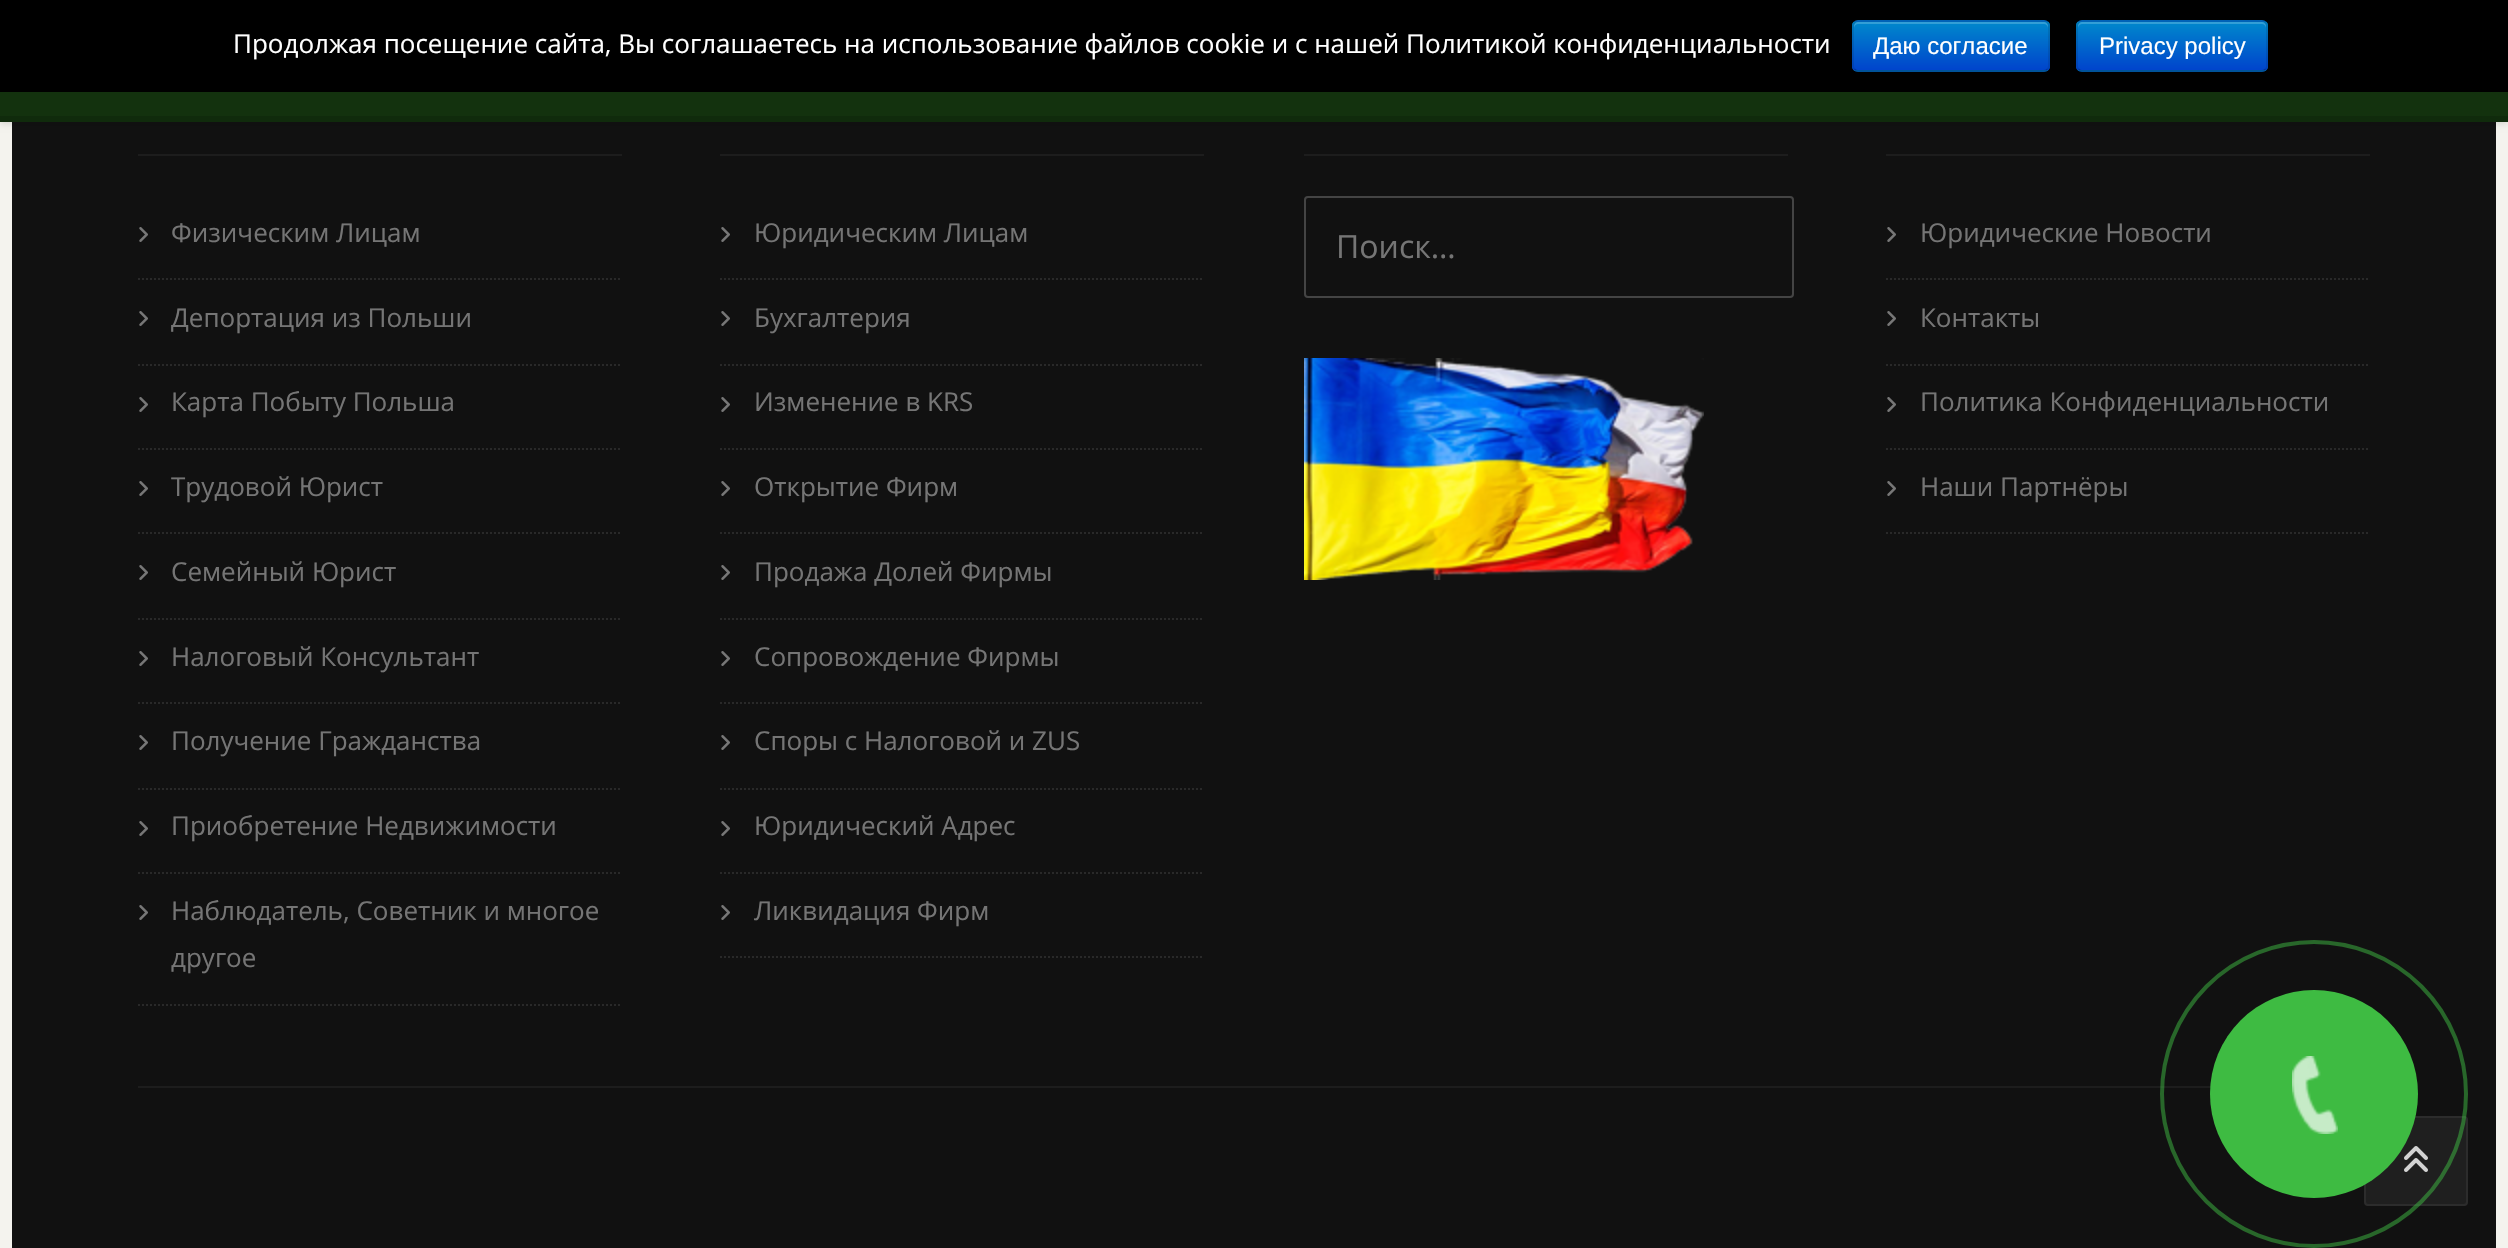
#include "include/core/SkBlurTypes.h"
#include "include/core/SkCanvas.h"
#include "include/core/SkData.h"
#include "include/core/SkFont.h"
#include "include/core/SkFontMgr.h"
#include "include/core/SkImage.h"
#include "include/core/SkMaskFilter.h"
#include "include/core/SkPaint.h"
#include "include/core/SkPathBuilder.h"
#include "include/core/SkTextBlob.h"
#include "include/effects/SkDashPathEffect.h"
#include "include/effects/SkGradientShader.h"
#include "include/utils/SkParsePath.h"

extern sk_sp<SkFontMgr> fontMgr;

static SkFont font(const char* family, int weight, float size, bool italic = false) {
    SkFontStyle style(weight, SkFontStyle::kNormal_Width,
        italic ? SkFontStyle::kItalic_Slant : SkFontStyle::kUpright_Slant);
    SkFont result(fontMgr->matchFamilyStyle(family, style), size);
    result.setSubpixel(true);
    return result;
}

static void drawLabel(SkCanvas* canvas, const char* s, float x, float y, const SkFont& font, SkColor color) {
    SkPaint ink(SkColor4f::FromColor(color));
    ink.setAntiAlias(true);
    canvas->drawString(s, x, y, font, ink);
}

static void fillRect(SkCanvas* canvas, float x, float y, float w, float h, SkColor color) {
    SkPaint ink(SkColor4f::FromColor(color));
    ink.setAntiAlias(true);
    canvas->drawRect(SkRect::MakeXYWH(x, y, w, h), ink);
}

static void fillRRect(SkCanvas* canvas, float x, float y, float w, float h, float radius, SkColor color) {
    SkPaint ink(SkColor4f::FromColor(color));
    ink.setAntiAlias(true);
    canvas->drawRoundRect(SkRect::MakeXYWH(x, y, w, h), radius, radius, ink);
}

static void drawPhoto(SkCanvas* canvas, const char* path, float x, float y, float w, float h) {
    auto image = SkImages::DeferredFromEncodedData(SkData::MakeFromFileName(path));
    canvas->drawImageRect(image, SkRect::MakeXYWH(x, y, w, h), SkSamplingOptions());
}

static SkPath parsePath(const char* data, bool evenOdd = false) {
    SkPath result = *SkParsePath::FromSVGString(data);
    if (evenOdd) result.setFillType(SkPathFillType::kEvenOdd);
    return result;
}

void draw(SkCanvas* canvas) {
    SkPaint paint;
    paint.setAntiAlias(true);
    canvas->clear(0xFFF4F3EE);
    fillRect(canvas, 12, 122, 2484, 1126, 0xFF111111);
    paint.setColor(0x1F000000);
    paint.setMaskFilter(SkMaskFilter::MakeBlur(kNormal_SkBlurStyle, 3));
    canvas->drawRect(SkRect::MakeXYWH(0, -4, 2508, 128), paint);
    paint.setMaskFilter(nullptr);
    fillRect(canvas, 0, 0, 2508, 92, 0xFF000000);
    SkFont font1 = font("Open Sans", 400, 26);
    drawLabel(canvas, "Продолжая посещение сайта, Вы соглашаетесь на использование файлов cookie и с нашей Политикой конфиденциальности", 233, 53, font1, 0xFFFFFFFF);
    fillRRect(canvas, 1852, 20, 198, 52, 6, 0xFF006DCC);
    canvas->save();
    canvas->clipPath(parsePath("M1858 20H2044C2047.5 20 2050 22.5 2050 26V66C2050 69.5 2047.5 72 2044 72H1858C1854.5 72 1852 69.5 1852 66V26C1852 22.5 1854.5 20 1858 20Z"), true);
    {
        const SkColor colors[] = {0xFF0088CC, 0xFF0044CC};
        const float stops[] = {0, 1};
        const SkPoint ends[] = {{1951, 22}, {1951, 70}};
        paint.setShader(SkGradientShader::MakeLinear(ends, colors, stops, 2, SkTileMode::kClamp));
        paint.setAlpha(255);
    }
    canvas->drawRect(SkRect::MakeXYWH(1852, 22, 198, 48), paint);
    canvas->restore();
    paint.setShader(nullptr);
    paint.setColor(0x33FFFFFF);
    canvas->drawPath(parsePath("M1858 24H2044C2046 24 2048 26 2048 28V26C2048 24 2046 22 2044 22H1858C1856 22 1854 24 1854 26V28C1854 26 1856 24 1858 24Z"), paint);
    paint.setStroke(true);
    paint.setStrokeWidth(2);
    paint.setColor(0x40000000);
    canvas->drawPath(parsePath("M2047.5 69.5C2046.5 70.5 2045.5 71 2044 71H1858C1856.5 71 1855.5 70.5 1854.5 69.5"), paint);
    paint.setColor(0x1A000000);
    canvas->drawPath(parsePath("M1854.5 69.5C1853.5 68.5 1853 67.5 1853 66V26C1853 24.5 1853.5 23.5 1854.5 22.5C1855.5 21.5 1856.5 21 1858 21H2044C2045.5 21 2046.5 21.5 2047.5 22.5C2048.5 23.5 2049 24.5 2049 26V66C2049 67.5 2048.5 68.5 2047.5 69.5"), paint);
    SkFont font2 = font("Liberation Sans", 400, 24);
    drawLabel(canvas, "Даю согласие", 1873, 54, font2, 0xFFFFFFFF);
    fillRRect(canvas, 2076, 20, 192, 52, 6, 0xFF006DCC);
    canvas->save();
    canvas->clipPath(parsePath("M2082 20H2262C2265.5 20 2268 22.5 2268 26V66C2268 69.5 2265.5 72 2262 72H2082C2078.5 72 2076 69.5 2076 66V26C2076 22.5 2078.5 20 2082 20Z"), true);
    paint.setStroke(false);
    {
        const SkColor colors[] = {0xFF0088CC, 0xFF0044CC};
        const float stops[] = {0, 1};
        const SkPoint ends[] = {{2172, 22}, {2172, 70}};
        paint.setShader(SkGradientShader::MakeLinear(ends, colors, stops, 2, SkTileMode::kClamp));
        paint.setAlpha(255);
    }
    canvas->drawRect(SkRect::MakeXYWH(2076, 22, 192, 48), paint);
    canvas->restore();
    paint.setShader(nullptr);
    paint.setColor(0x33FFFFFF);
    canvas->drawPath(parsePath("M2082 24H2262C2264 24 2266 26 2266 28V26C2266 24 2264 22 2262 22H2082C2080 22 2078 24 2078 26V28C2078 26 2080 24 2082 24Z"), paint);
    paint.setStroke(true);
    paint.setColor(0x40000000);
    canvas->drawPath(parsePath("M2265.5 69.5C2264.5 70.5 2263.5 71 2262 71H2082C2080.5 71 2079.5 70.5 2078.5 69.5"), paint);
    paint.setColor(0x1A000000);
    canvas->drawPath(parsePath("M2078.5 69.5C2077.5 68.5 2077 67.5 2077 66V26C2077 24.5 2077.5 23.5 2078.5 22.5C2079.5 21.5 2080.5 21 2082 21H2262C2263.5 21 2264.5 21.5 2265.5 22.5C2266.5 23.5 2267 24.5 2267 26V66C2267 67.5 2266.5 68.5 2265.5 69.5"), paint);
    drawLabel(canvas, "Privacy policy", 2099, 54, font2, 0xFFFFFFFF);
    fillRect(canvas, 0, 92, 2508, 24, 0xFF13320E);
    fillRect(canvas, 0, 116, 2508, 6, 0xFF102B0C);
    fillRect(canvas, 138, 1086, 2073, 2, 0xFF1D1D1D);
    fillRect(canvas, 138, 154, 484, 2, 0xFF1D1D1D);
    paint.setColor(0xFF292929);
    paint.setPathEffect(SkDashPathEffect::Make({{2, 2}}, 0));
    canvas->drawPath(parsePath("M138 279H622"), paint);
    paint.setPathEffect(nullptr);
    drawPhoto(canvas, "assets/img1.png", 139, 227, 9, 15);
    drawLabel(canvas, "Физическим Лицам", 171, 242, font1, 0xFF757575);
    paint.setPathEffect(SkDashPathEffect::Make({{2, 2}}, 0));
    canvas->drawPath(parsePath("M138 365H622"), paint);
    paint.setPathEffect(nullptr);
    drawPhoto(canvas, "assets/img1.png", 139, 311, 9, 15);
    drawLabel(canvas, "Депортация из Польши", 171, 327, font1, 0xFF757575);
    paint.setPathEffect(SkDashPathEffect::Make({{2, 2}}, 0));
    canvas->drawPath(parsePath("M138 449H622"), paint);
    paint.setPathEffect(nullptr);
    drawPhoto(canvas, "assets/img1.png", 139, 397, 9, 15);
    drawLabel(canvas, "Карта Побыту Польша", 171, 411, font1, 0xFF757575);
    paint.setPathEffect(SkDashPathEffect::Make({{2, 2}}, 0));
    canvas->drawPath(parsePath("M138 533H622"), paint);
    paint.setPathEffect(nullptr);
    drawPhoto(canvas, "assets/img1.png", 139, 481, 9, 15);
    drawLabel(canvas, "Трудовой Юрист", 171, 496, font1, 0xFF757575);
    paint.setPathEffect(SkDashPathEffect::Make({{2, 2}}, 0));
    canvas->drawPath(parsePath("M138 619H622"), paint);
    paint.setPathEffect(nullptr);
    drawPhoto(canvas, "assets/img1.png", 139, 565, 9, 15);
    drawLabel(canvas, "Семейный Юрист", 171, 581, font1, 0xFF757575);
    paint.setPathEffect(SkDashPathEffect::Make({{2, 2}}, 0));
    canvas->drawPath(parsePath("M138 703H622"), paint);
    paint.setPathEffect(nullptr);
    drawPhoto(canvas, "assets/img1.png", 139, 651, 9, 15);
    drawLabel(canvas, "Налоговый Консультант", 171, 666, font1, 0xFF757575);
    paint.setPathEffect(SkDashPathEffect::Make({{2, 2}}, 0));
    canvas->drawPath(parsePath("M138 789H622"), paint);
    paint.setPathEffect(nullptr);
    drawPhoto(canvas, "assets/img1.png", 139, 735, 9, 15);
    drawLabel(canvas, "Получение Гражданства", 171, 750, font1, 0xFF757575);
    paint.setPathEffect(SkDashPathEffect::Make({{2, 2}}, 0));
    canvas->drawPath(parsePath("M138 873H622"), paint);
    paint.setPathEffect(nullptr);
    drawPhoto(canvas, "assets/img1.png", 139, 821, 9, 15);
    drawLabel(canvas, "Приобретение Недвижимости", 171, 835, font1, 0xFF757575);
    paint.setPathEffect(SkDashPathEffect::Make({{2, 2}}, 0));
    canvas->drawPath(parsePath("M138 1005H622"), paint);
    paint.setPathEffect(nullptr);
    drawPhoto(canvas, "assets/img1.png", 139, 905, 9, 15);
    drawLabel(canvas, "Наблюдатель, Советник и многое", 171, 920, font1, 0xFF757575);
    drawLabel(canvas, "другое", 171, 967, font1, 0xFF757575);
    fillRect(canvas, 720, 154, 484, 2, 0xFF1D1D1D);
    paint.setPathEffect(SkDashPathEffect::Make({{2, 2}}, 0));
    canvas->drawPath(parsePath("M720 279H1204"), paint);
    paint.setPathEffect(nullptr);
    drawPhoto(canvas, "assets/img1.png", 721, 227, 9, 15);
    drawLabel(canvas, "Юридическим Лицам", 754, 242, font1, 0xFF757575);
    paint.setPathEffect(SkDashPathEffect::Make({{2, 2}}, 0));
    canvas->drawPath(parsePath("M720 365H1204"), paint);
    paint.setPathEffect(nullptr);
    drawPhoto(canvas, "assets/img1.png", 721, 311, 9, 15);
    drawLabel(canvas, "Бухгалтерия", 754, 327, font1, 0xFF757575);
    paint.setPathEffect(SkDashPathEffect::Make({{2, 2}}, 0));
    canvas->drawPath(parsePath("M720 449H1204"), paint);
    paint.setPathEffect(nullptr);
    drawPhoto(canvas, "assets/img1.png", 721, 397, 9, 15);
    drawLabel(canvas, "Изменение в KRS", 754, 411, font1, 0xFF757575);
    paint.setPathEffect(SkDashPathEffect::Make({{2, 2}}, 0));
    canvas->drawPath(parsePath("M720 533H1204"), paint);
    paint.setPathEffect(nullptr);
    drawPhoto(canvas, "assets/img1.png", 721, 481, 9, 15);
    drawLabel(canvas, "Открытие Фирм", 754, 496, font1, 0xFF757575);
    paint.setPathEffect(SkDashPathEffect::Make({{2, 2}}, 0));
    canvas->drawPath(parsePath("M720 619H1204"), paint);
    paint.setPathEffect(nullptr);
    drawPhoto(canvas, "assets/img1.png", 721, 565, 9, 15);
    drawLabel(canvas, "Продажа Долей Фирмы", 754, 581, font1, 0xFF757575);
    paint.setPathEffect(SkDashPathEffect::Make({{2, 2}}, 0));
    canvas->drawPath(parsePath("M720 703H1204"), paint);
    paint.setPathEffect(nullptr);
    drawPhoto(canvas, "assets/img1.png", 721, 651, 9, 15);
    drawLabel(canvas, "Сопровождение Фирмы", 754, 666, font1, 0xFF757575);
    paint.setPathEffect(SkDashPathEffect::Make({{2, 2}}, 0));
    canvas->drawPath(parsePath("M720 789H1204"), paint);
    paint.setPathEffect(nullptr);
    drawPhoto(canvas, "assets/img1.png", 721, 735, 9, 15);
    drawLabel(canvas, "Споры с Налоговой и ZUS", 754, 750, font1, 0xFF757575);
    paint.setPathEffect(SkDashPathEffect::Make({{2, 2}}, 0));
    canvas->drawPath(parsePath("M720 873H1204"), paint);
    paint.setPathEffect(nullptr);
    drawPhoto(canvas, "assets/img1.png", 721, 821, 9, 15);
    drawLabel(canvas, "Юридический Адрес", 754, 835, font1, 0xFF757575);
    paint.setPathEffect(SkDashPathEffect::Make({{2, 2}}, 0));
    canvas->drawPath(parsePath("M720 957H1204"), paint);
    paint.setPathEffect(nullptr);
    drawPhoto(canvas, "assets/img1.png", 721, 905, 9, 15);
    drawLabel(canvas, "Ликвидация Фирм", 754, 920, font1, 0xFF757575);
    fillRect(canvas, 1304, 154, 484, 2, 0xFF1D1D1D);
    paint.setColor(0xFF444444);
    canvas->drawRoundRect(SkRect::MakeXYWH(1305, 197, 488, 100), 3, 3, paint);
    SkFont font3 = font("Open Sans", 400, 32);
    drawLabel(canvas, "Поиск…", 1336, 258, font3, 0xFF757575);
    drawPhoto(canvas, "assets/img2.png", 1304, 358, 400, 222);
    fillRect(canvas, 1886, 154, 484, 2, 0xFF1D1D1D);
    paint.setColor(0xFF292929);
    paint.setPathEffect(SkDashPathEffect::Make({{2, 2}}, 0));
    canvas->drawPath(parsePath("M1886 279H2370"), paint);
    paint.setPathEffect(nullptr);
    drawPhoto(canvas, "assets/img1.png", 1887, 227, 9, 15);
    drawLabel(canvas, "Юридические Новости", 1920, 242, font1, 0xFF757575);
    paint.setPathEffect(SkDashPathEffect::Make({{2, 2}}, 0));
    canvas->drawPath(parsePath("M1886 365H2370"), paint);
    paint.setPathEffect(nullptr);
    drawPhoto(canvas, "assets/img1.png", 1887, 311, 9, 15);
    drawLabel(canvas, "Контакты", 1920, 327, font1, 0xFF757575);
    paint.setPathEffect(SkDashPathEffect::Make({{2, 2}}, 0));
    canvas->drawPath(parsePath("M1886 449H2370"), paint);
    paint.setPathEffect(nullptr);
    drawPhoto(canvas, "assets/img1.png", 1887, 397, 9, 15);
    drawLabel(canvas, "Политика Конфиденциальности", 1920, 411, font1, 0xFF757575);
    paint.setPathEffect(SkDashPathEffect::Make({{2, 2}}, 0));
    canvas->drawPath(parsePath("M1886 533H2370"), paint);
    paint.setPathEffect(nullptr);
    drawPhoto(canvas, "assets/img1.png", 1887, 481, 9, 15);
    drawLabel(canvas, "Наши Партнёры", 1920, 496, font1, 0xFF757575);
    paint.setStroke(false);
    paint.setColor(0xFF1F1F1F);
    canvas->drawRoundRect(SkRect::MakeXYWH(2365, 1117, 102, 88), 3, 3, paint);
    paint.setStroke(true);
    paint.setColor(0xFF2C2C2C);
    canvas->drawRoundRect(SkRect::MakeXYWH(2365, 1117, 102, 88), 3, 3, paint);
    drawPhoto(canvas, "assets/img4.png", 2404, 1146, 24, 26);
    paint.setStrokeWidth(4);
    paint.setColor(0x803EBB42);
    canvas->drawCircle(2314, 1094, 152, paint);
    paint.setStroke(false);
    paint.setColor(0xFF3EBB42);
    canvas->drawCircle(2314, 1094, 104, paint);
    drawPhoto(canvas, "assets/img3.png", 2292, 1056, 46, 78);
}
